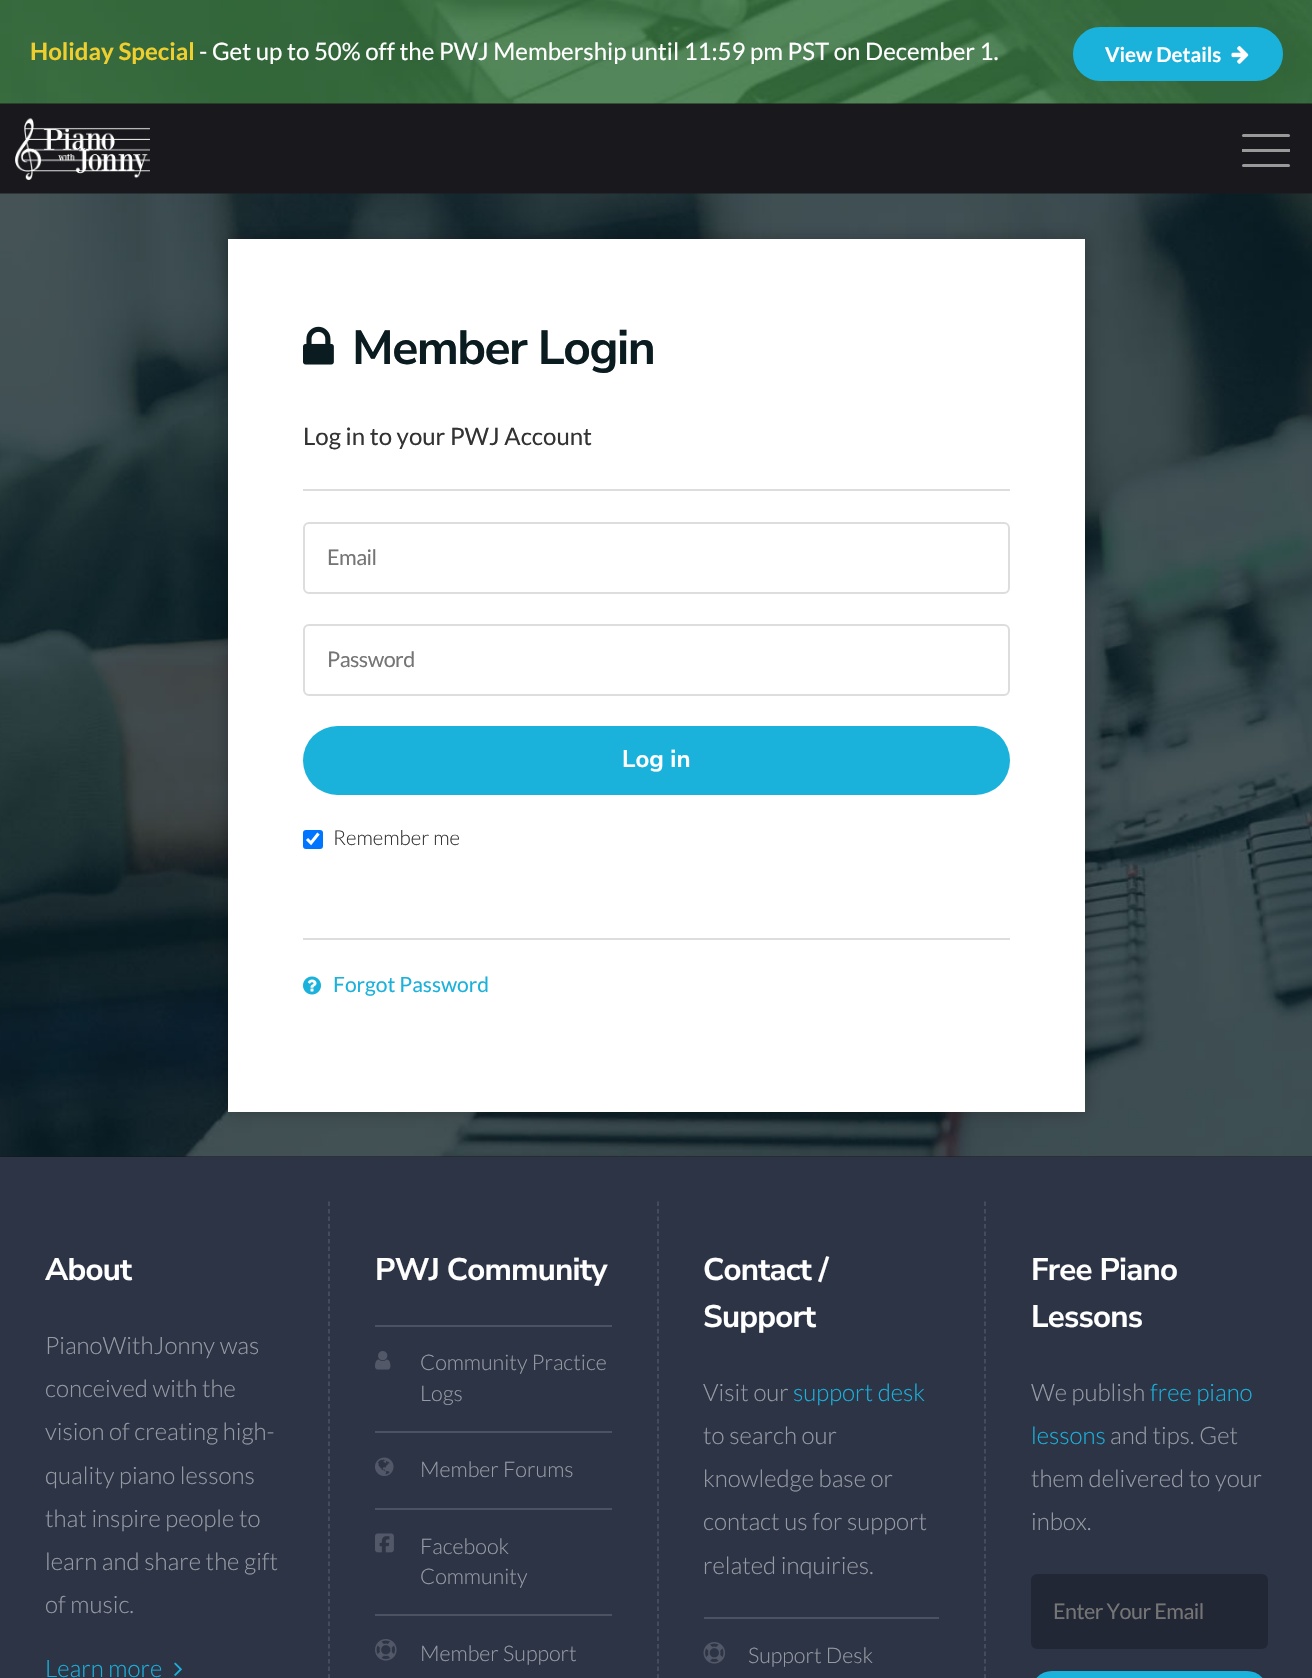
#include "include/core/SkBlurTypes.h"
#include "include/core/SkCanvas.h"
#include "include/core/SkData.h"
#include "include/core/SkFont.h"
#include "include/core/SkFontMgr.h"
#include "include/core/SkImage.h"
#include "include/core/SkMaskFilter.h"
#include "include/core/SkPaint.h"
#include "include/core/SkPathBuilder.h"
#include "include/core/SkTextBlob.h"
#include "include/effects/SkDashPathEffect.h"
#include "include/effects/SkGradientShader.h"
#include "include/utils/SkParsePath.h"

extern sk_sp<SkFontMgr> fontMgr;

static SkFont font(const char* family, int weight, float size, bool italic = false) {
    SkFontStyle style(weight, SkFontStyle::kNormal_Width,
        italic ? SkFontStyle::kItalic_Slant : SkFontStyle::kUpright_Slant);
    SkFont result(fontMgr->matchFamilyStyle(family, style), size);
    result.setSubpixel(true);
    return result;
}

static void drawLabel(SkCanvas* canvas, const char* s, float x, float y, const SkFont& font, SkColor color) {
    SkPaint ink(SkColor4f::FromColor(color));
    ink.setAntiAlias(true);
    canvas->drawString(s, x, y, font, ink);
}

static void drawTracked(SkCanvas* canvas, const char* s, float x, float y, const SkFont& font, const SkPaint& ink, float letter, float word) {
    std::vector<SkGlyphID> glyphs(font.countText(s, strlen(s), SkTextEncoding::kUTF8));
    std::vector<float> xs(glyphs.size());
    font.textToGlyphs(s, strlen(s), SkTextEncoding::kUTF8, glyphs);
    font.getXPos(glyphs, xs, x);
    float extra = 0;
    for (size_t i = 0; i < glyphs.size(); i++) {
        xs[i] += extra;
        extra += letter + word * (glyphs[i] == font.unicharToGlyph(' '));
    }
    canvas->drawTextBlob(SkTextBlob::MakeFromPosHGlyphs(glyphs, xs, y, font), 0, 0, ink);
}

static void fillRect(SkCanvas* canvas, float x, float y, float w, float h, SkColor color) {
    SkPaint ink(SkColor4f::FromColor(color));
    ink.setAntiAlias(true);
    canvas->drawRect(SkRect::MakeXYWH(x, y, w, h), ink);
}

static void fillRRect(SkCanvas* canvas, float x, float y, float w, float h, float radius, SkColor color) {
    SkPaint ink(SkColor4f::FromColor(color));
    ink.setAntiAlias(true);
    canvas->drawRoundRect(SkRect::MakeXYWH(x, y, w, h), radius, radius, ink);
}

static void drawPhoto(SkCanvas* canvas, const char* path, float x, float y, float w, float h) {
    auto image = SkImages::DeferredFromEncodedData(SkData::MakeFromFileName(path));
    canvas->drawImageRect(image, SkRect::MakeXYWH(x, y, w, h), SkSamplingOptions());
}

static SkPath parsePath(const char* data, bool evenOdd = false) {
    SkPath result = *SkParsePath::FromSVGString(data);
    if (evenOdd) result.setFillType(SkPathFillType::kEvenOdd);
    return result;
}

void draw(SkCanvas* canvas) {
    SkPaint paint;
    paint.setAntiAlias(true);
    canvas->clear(0xFF19191D);
    fillRect(canvas, 0, 103, 1312, 1, 0xFF151515);
    drawPhoto(canvas, "assets/img1.png", 0, 0, 1312, 104);
    SkFont font1 = font("Lato", 700, 24);
    drawLabel(canvas, "Holiday Special", 30, 60, font1, 0xFFEFCE2F);
    SkFont font2 = font("Lato", 400, 24);
    drawLabel(canvas, "- Get up to 50% off the PWJ Membership until 11:59 pm PST on December 1.", 199, 60, font2, 0xFFFFFFFF);
    paint.setColor(0xFF1AB1DB);
    canvas->drawRoundRect(SkRect::MakeXYWH(1074.5f, 28.5f, 207, 51), 25.5f, 25.5f, paint);
    paint.setStroke(true);
    paint.setStrokeWidth(3);
    canvas->drawRoundRect(SkRect::MakeXYWH(1074.5f, 28.5f, 207, 51), 25.5f, 25.5f, paint);
    SkFont font3 = font("Lato", 700, 20.5f);
    drawLabel(canvas, "View Details", 1105, 62, font3, 0xFFFFFFFF);
    drawPhoto(canvas, "assets/img2.png", 1231, 46, 18, 18);
    drawPhoto(canvas, "assets/img3.png", 15, 118, 135, 62);
    fillRect(canvas, 1242, 149, 48, 3, 0xFF999999);
    fillRRect(canvas, 1242, 134, 48, 3, 1.5f, 0xFF999999);
    fillRRect(canvas, 1242, 164, 48, 3, 1.5f, 0xFF999999);
    fillRect(canvas, 0, 1156, 1312, 1, 0xFF151515);
    drawPhoto(canvas, "assets/img4.png", 0, 193, 1312, 964);
    paint.setStroke(false);
    paint.setColor(0x40000000);
    paint.setMaskFilter(SkMaskFilter::MakeBlur(kNormal_SkBlurStyle, 7.5f));
    canvas->drawRect(SkRect::MakeXYWH(228, 239, 857, 873), paint);
    paint.setMaskFilter(nullptr);
    fillRect(canvas, 228, 239, 857, 873, 0xFFFFFFFF);
    drawPhoto(canvas, "assets/img5.png", 303, 326, 31, 39);
    SkFont font4 = font("Nunito Sans", 700, 48);
    paint.setColor(0xFF0B1C21);
    drawTracked(canvas, "Member Login", 352, 364, font4, paint, -1.5f, 0);
    drawLabel(canvas, "Log in to your PWJ Account", 303, 445, font2, 0xFF333333);
    fillRect(canvas, 303, 489, 707, 2, 0xFFDDDDDD);
    paint.setStroke(true);
    paint.setStrokeWidth(2);
    paint.setColor(0xFFDDDDDD);
    canvas->drawRoundRect(SkRect::MakeXYWH(304, 523, 705, 70), 5, 5, paint);
    SkFont font5 = font("Lato", 400, 21.5f);
    paint.setStroke(false);
    paint.setColor(0xFF757575);
    drawTracked(canvas, "Email", 327, 565, font5, paint, -0.5f, 0);
    paint.setStroke(true);
    paint.setColor(0xFFDDDDDD);
    canvas->drawRoundRect(SkRect::MakeXYWH(304, 625, 705, 70), 5, 5, paint);
    paint.setStroke(false);
    paint.setColor(0xFF757575);
    drawTracked(canvas, "Password", 327, 667, font5, paint, -0.5f, 0);
    fillRRect(canvas, 303, 726, 707, 69, 34.5f, 0xFF1AB1DB);
    SkFont font6 = font("Nunito Sans", 700, 24);
    drawLabel(canvas, "Log in", 622, 767, font6, 0xFFFFFFFF);
    fillRRect(canvas, 303, 830, 20, 19, 3, 0xFF0075FF);
    paint.setStroke(true);
    paint.setStrokeWidth(3.1f);
    paint.setColor(0xFFFFFFFF);
    canvas->drawPath(parsePath("M307 839L311 843L318.5 833.5"), paint);
    SkFont font7 = font("Lato", 300, 20.5f);
    drawLabel(canvas, "Remember me", 333, 845, font7, 0xFF333333);
    fillRect(canvas, 303, 938, 707, 2, 0xFFDDDDDD);
    drawPhoto(canvas, "assets/img6.png", 303, 976, 18, 19);
    SkFont font8 = font("Lato", 400, 21);
    drawLabel(canvas, "Forgot Password", 333, 992, font8, 0xFF1AB1DB);
    fillRect(canvas, 0, 1157, 1312, 521, 0xFF2D3446);
    SkFont font9 = font("Nunito Sans", 700, 31.25f);
    paint.setStroke(false);
    drawTracked(canvas, "About", 45, 1280, font9, paint, -0.75f, 0);
    SkFont font10 = font("Lato", 300, 24);
    drawLabel(canvas, "PianoWithJonny was", 45, 1354, font10, 0xFF969AA3);
    drawLabel(canvas, "conceived with the", 45, 1397, font10, 0xFF969AA3);
    drawLabel(canvas, "vision of creating high-", 45, 1440, font10, 0xFF969AA3);
    drawLabel(canvas, "quality piano lessons", 45, 1484, font10, 0xFF969AA3);
    drawLabel(canvas, "that inspire people to", 45, 1527, font10, 0xFF969AA3);
    drawLabel(canvas, "learn and share the gift", 45, 1570, font10, 0xFF969AA3);
    drawLabel(canvas, "of music.", 45, 1613, font10, 0xFF969AA3);
    drawLabel(canvas, "Learn more", 45, 1677, font10, 0xFF1AB1DB);
    drawPhoto(canvas, "assets/img7.png", 174, 1662, 8, 14);
    paint.setStroke(true);
    paint.setStrokeWidth(1.5f);
    paint.setColor(0xFF4D5262);
    paint.setPathEffect(SkDashPathEffect::Make({{4.5f, 3}}, 0));
    canvas->drawPath(parsePath("M329 1201.5V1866"), paint);
    paint.setPathEffect(nullptr);
    paint.setStroke(false);
    paint.setColor(0xFFFFFFFF);
    drawTracked(canvas, "PWJ Community", 375, 1280, font9, paint, -0.75f, 0);
    fillRect(canvas, 375, 1325, 237, 2, 0xFF4D5262);
    drawPhoto(canvas, "assets/img8.png", 375, 1351, 16, 19);
    SkFont font11 = font("Lato", 300, 21.5f);
    drawLabel(canvas, "Community Practice", 420, 1370, font11, 0xFF969AA3);
    drawLabel(canvas, "Logs", 420, 1401, font11, 0xFF969AA3);
    fillRect(canvas, 375, 1431, 237, 2, 0xFF4D5262);
    drawPhoto(canvas, "assets/img9.png", 375, 1457, 19, 19);
    drawLabel(canvas, "Member Forums", 420, 1477, font11, 0xFF969AA3);
    fillRect(canvas, 375, 1508, 237, 2, 0xFF4D5262);
    drawPhoto(canvas, "assets/img10.png", 375, 1533, 19, 20);
    drawLabel(canvas, "Facebook", 420, 1554, font11, 0xFF969AA3);
    drawLabel(canvas, "Community", 420, 1584, font11, 0xFF969AA3);
    fillRect(canvas, 375, 1614, 237, 2, 0xFF4D5262);
    drawPhoto(canvas, "assets/img11.png", 375, 1639, 22, 22);
    drawLabel(canvas, "Member Support", 420, 1661, font11, 0xFF969AA3);
    paint.setStroke(true);
    paint.setColor(0xFF4D5262);
    paint.setPathEffect(SkDashPathEffect::Make({{4.5f, 3}}, 0));
    canvas->drawPath(parsePath("M658 1201.5V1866"), paint);
    paint.setPathEffect(nullptr);
    paint.setStroke(false);
    paint.setColor(0xFFFFFFFF);
    drawTracked(canvas, "Contact /", 703, 1280, font9, paint, -0.75f, 0);
    drawTracked(canvas, "Support", 703, 1327, font9, paint, -0.75f, 0);
    drawLabel(canvas, "Visit our", 703, 1401, font10, 0xFF969AA3);
    drawLabel(canvas, "support desk", 793, 1401, font10, 0xFF1AB1DB);
    drawLabel(canvas, "to search our", 703, 1444, font10, 0xFF969AA3);
    drawLabel(canvas, "knowledge base or", 703, 1487, font10, 0xFF969AA3);
    drawLabel(canvas, "contact us for support", 703, 1530, font10, 0xFF969AA3);
    drawLabel(canvas, "related inquiries.", 703, 1574, font10, 0xFF969AA3);
    fillRect(canvas, 704, 1617, 235, 2, 0xFF4D5262);
    drawPhoto(canvas, "assets/img12.png", 703, 1642, 22, 22);
    drawLabel(canvas, "Support Desk", 748, 1663, font11, 0xFF969AA3);
    paint.setStroke(true);
    paint.setColor(0xFF4D5262);
    paint.setPathEffect(SkDashPathEffect::Make({{4.5f, 3}}, 0));
    canvas->drawPath(parsePath("M985 1201.5V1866"), paint);
    paint.setPathEffect(nullptr);
    paint.setStroke(false);
    paint.setColor(0xFFFFFFFF);
    drawTracked(canvas, "Free Piano", 1031, 1280, font9, paint, -0.75f, 0);
    drawTracked(canvas, "Lessons", 1031, 1327, font9, paint, -0.75f, 0);
    drawLabel(canvas, "We publish", 1031, 1401, font10, 0xFF969AA3);
    drawLabel(canvas, "free piano", 1150, 1401, font10, 0xFF1AB1DB);
    drawLabel(canvas, "lessons", 1031, 1444, font10, 0xFF1AB1DB);
    drawLabel(canvas, "and tips. Get", 1110, 1444, font10, 0xFF969AA3);
    drawLabel(canvas, "them delivered to your", 1031, 1487, font10, 0xFF969AA3);
    drawLabel(canvas, "inbox.", 1031, 1530, font10, 0xFF969AA3);
    fillRRect(canvas, 1031, 1574, 237, 75, 6, 0xFF222735);
    paint.setColor(0xFF757575);
    drawTracked(canvas, "Enter Your Email", 1053, 1619, font5, paint, -0.5f, 0);
    fillRRect(canvas, 1031, 1671, 237, 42, 34.5f, 0xFF1AB1DB);
}
